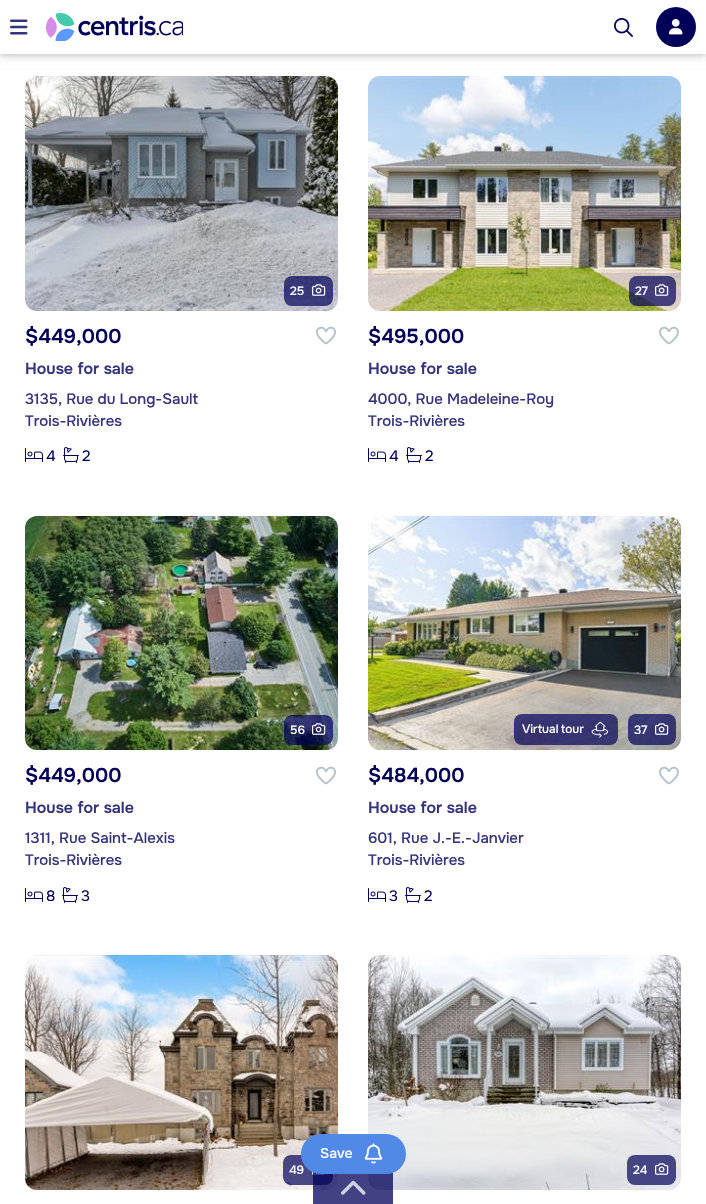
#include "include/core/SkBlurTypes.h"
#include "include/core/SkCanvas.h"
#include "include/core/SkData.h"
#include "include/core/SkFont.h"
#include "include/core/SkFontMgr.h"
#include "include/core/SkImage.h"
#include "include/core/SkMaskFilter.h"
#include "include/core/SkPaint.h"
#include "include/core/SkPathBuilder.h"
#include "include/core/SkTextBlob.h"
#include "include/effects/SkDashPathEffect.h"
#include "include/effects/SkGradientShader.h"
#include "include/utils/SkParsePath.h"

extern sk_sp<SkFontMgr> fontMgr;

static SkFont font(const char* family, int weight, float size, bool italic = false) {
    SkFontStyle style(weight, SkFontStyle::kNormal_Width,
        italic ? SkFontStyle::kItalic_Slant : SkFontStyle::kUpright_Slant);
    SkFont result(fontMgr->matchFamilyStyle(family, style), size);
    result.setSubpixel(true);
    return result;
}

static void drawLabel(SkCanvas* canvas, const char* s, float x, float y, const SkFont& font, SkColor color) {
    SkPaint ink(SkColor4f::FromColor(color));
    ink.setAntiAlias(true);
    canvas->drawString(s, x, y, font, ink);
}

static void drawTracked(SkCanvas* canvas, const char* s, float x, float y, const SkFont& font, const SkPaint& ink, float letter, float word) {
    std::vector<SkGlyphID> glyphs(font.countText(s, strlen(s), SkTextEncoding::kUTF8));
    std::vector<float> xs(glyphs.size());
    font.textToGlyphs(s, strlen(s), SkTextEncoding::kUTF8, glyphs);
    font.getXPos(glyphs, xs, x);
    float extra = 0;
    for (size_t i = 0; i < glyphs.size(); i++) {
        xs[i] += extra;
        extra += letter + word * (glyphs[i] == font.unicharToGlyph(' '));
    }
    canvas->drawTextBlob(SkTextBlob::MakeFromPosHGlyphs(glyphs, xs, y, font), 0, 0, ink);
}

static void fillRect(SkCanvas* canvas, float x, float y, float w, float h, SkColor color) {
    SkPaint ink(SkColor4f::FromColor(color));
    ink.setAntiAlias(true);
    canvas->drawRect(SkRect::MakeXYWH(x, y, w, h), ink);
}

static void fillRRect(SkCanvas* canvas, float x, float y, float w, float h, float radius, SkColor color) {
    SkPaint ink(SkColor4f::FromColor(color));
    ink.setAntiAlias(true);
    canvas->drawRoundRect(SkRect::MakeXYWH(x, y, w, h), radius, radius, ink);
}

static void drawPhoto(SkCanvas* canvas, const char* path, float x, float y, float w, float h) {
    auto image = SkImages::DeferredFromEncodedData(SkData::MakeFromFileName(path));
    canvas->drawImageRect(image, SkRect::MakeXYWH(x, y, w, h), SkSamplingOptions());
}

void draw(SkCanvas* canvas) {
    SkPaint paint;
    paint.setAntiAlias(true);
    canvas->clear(0xFFFFFFFF);
    paint.setColor(0x0F000000);
    paint.setMaskFilter(SkMaskFilter::MakeBlur(kNormal_SkBlurStyle, 5));
    canvas->drawRect(SkRect::MakeXYWH(0, 1, 706, 54), paint);
    paint.setMaskFilter(nullptr);
    paint.setColor(0x12000000);
    paint.setMaskFilter(SkMaskFilter::MakeBlur(kNormal_SkBlurStyle, 2.5f));
    canvas->drawRect(SkRect::MakeXYWH(0, 4, 706, 54), paint);
    paint.setMaskFilter(nullptr);
    paint.setColor(0x1A000000);
    paint.setMaskFilter(SkMaskFilter::MakeBlur(kNormal_SkBlurStyle, 2));
    canvas->drawRect(SkRect::MakeXYWH(1, 3, 704, 52), paint);
    paint.setMaskFilter(nullptr);
    fillRect(canvas, 0, 0, 706, 54, 0xFFFFFFFF);
    drawPhoto(canvas, "assets/img1.png", 10, 19, 18, 16);
    drawPhoto(canvas, "assets/img2.png", 46, 13, 137, 28);
    drawPhoto(canvas, "assets/img3.png", 614, 18, 19, 19);
    paint.setColor(0xFF010159);
    canvas->drawCircle(676, 27, 20, paint);
    drawPhoto(canvas, "assets/img4.png", 669, 19, 14, 16);
    drawPhoto(canvas, "assets/img5.png", 25, 76, 313, 235);
    fillRRect(canvas, 284, 276, 49, 30, 8, 0xB3010159);
    SkFont font1 = font("Onest", 500, 12);
    drawLabel(canvas, "25", 290, 295, font1, 0xFFFFFFFF);
    drawPhoto(canvas, "assets/img6.png", 312, 284, 14, 12);
    SkFont font2 = font("Onest", 600, 20);
    drawLabel(canvas, "$449,000", 25, 343, font2, 0xFF010159);
    drawPhoto(canvas, "assets/img7.png", 316, 326, 20, 19);
    SkFont font3 = font("Onest", 600, 16);
    drawLabel(canvas, "House for sale", 25, 374, font3, 0xFF34347A);
    SkFont font4 = font("Onest", 500, 15);
    drawLabel(canvas, "3135, Rue du Long-Sault", 25, 404, font4, 0xFF34347A);
    drawLabel(canvas, "Trois-Rivières", 25, 426, font4, 0xFF34347A);
    drawPhoto(canvas, "assets/img8.png", 25, 448, 18, 14);
    SkFont font5 = font("Onest", 400, 15);
    drawLabel(canvas, "4", 46, 461, font5, 0xFF010159);
    drawPhoto(canvas, "assets/img9.png", 63, 447, 16, 16);
    drawLabel(canvas, "2", 82, 461, font5, 0xFF010159);
    drawPhoto(canvas, "assets/img10.png", 368, 76, 313, 235);
    fillRRect(canvas, 629, 276, 47, 30, 8, 0xB3010159);
    drawLabel(canvas, "27", 635, 295, font1, 0xFFFFFFFF);
    drawPhoto(canvas, "assets/img11.png", 655, 284, 14, 12);
    drawLabel(canvas, "$495,000", 368, 343, font2, 0xFF010159);
    drawPhoto(canvas, "assets/img7.png", 659, 326, 20, 19);
    drawLabel(canvas, "House for sale", 368, 374, font3, 0xFF34347A);
    drawLabel(canvas, "4000, Rue Madeleine-Roy", 368, 404, font4, 0xFF34347A);
    drawLabel(canvas, "Trois-Rivières", 368, 426, font4, 0xFF34347A);
    drawPhoto(canvas, "assets/img8.png", 368, 448, 18, 14);
    drawLabel(canvas, "4", 389, 461, font5, 0xFF010159);
    drawPhoto(canvas, "assets/img9.png", 406, 447, 16, 16);
    drawLabel(canvas, "2", 425, 461, font5, 0xFF010159);
    drawPhoto(canvas, "assets/img12.png", 25, 516, 313, 234);
    fillRRect(canvas, 284, 715, 49, 30, 8, 0xB3010159);
    drawLabel(canvas, "56", 290, 734, font1, 0xFFFFFFFF);
    drawPhoto(canvas, "assets/img13.png", 312, 723, 14, 12);
    drawLabel(canvas, "$449,000", 25, 782, font2, 0xFF010159);
    drawPhoto(canvas, "assets/img7.png", 316, 766, 20, 19);
    drawLabel(canvas, "House for sale", 25, 813, font3, 0xFF34347A);
    drawLabel(canvas, "1311, Rue Saint-Alexis", 25, 843, font4, 0xFF34347A);
    drawLabel(canvas, "Trois-Rivières", 25, 865, font4, 0xFF34347A);
    drawPhoto(canvas, "assets/img8.png", 25, 888, 18, 14);
    drawLabel(canvas, "8", 46, 901, font5, 0xFF010159);
    drawPhoto(canvas, "assets/img9.png", 62, 887, 16, 16);
    drawLabel(canvas, "3", 81, 901, font5, 0xFF010159);
    drawPhoto(canvas, "assets/img14.png", 368, 516, 313, 234);
    fillRRect(canvas, 514, 714, 104, 31, 8, 0xB3010159);
    paint.setColor(0xFFFFFFFF);
    drawTracked(canvas, "Virtual tour", 522, 733, font1, paint, 0, -1);
    drawPhoto(canvas, "assets/img15.png", 591, 721, 17, 17);
    fillRRect(canvas, 628, 714, 48, 31, 8, 0xB3010159);
    drawLabel(canvas, "37", 634, 734, font1, 0xFFFFFFFF);
    drawPhoto(canvas, "assets/img16.png", 655, 723, 14, 12);
    drawLabel(canvas, "$484,000", 368, 782, font2, 0xFF010159);
    drawPhoto(canvas, "assets/img7.png", 659, 766, 20, 19);
    drawLabel(canvas, "House for sale", 368, 813, font3, 0xFF34347A);
    drawLabel(canvas, "601, Rue J.-E.-Janvier", 368, 843, font4, 0xFF34347A);
    drawLabel(canvas, "Trois-Rivières", 368, 865, font4, 0xFF34347A);
    drawPhoto(canvas, "assets/img8.png", 368, 888, 18, 14);
    drawLabel(canvas, "3", 389, 901, font5, 0xFF010159);
    drawPhoto(canvas, "assets/img9.png", 405, 887, 16, 16);
    drawLabel(canvas, "2", 424, 901, font5, 0xFF010159);
    drawPhoto(canvas, "assets/img17.png", 25, 955, 313, 235);
    fillRRect(canvas, 283, 1155, 50, 30, 8, 0xB3010159);
    drawLabel(canvas, "49", 289, 1174, font1, 0xFFFFFFFF);
    drawPhoto(canvas, "assets/img18.png", 312, 1171, 13, 4);
    drawPhoto(canvas, "assets/img19.png", 368, 955, 313, 235);
    fillRRect(canvas, 627, 1155, 49, 30, 8, 0xB3010159);
    drawLabel(canvas, "24", 633, 1174, font1, 0xFFFFFFFF);
    drawPhoto(canvas, "assets/img20.png", 655, 1163, 14, 12);
    fillRect(canvas, 313, 1172, 80, 32, 0xBF010159);
    fillRRect(canvas, 301, 1134, 105, 40, 20, 0xFF5189E6);
    SkFont font6 = font("Onest", 500, 14);
    drawLabel(canvas, "Save", 320, 1158, font6, 0xFFFFFFFF);
    drawPhoto(canvas, "assets/img21.png", 364, 1143, 19, 21);
    drawPhoto(canvas, "assets/img22.png", 341, 1180, 25, 15);
}
